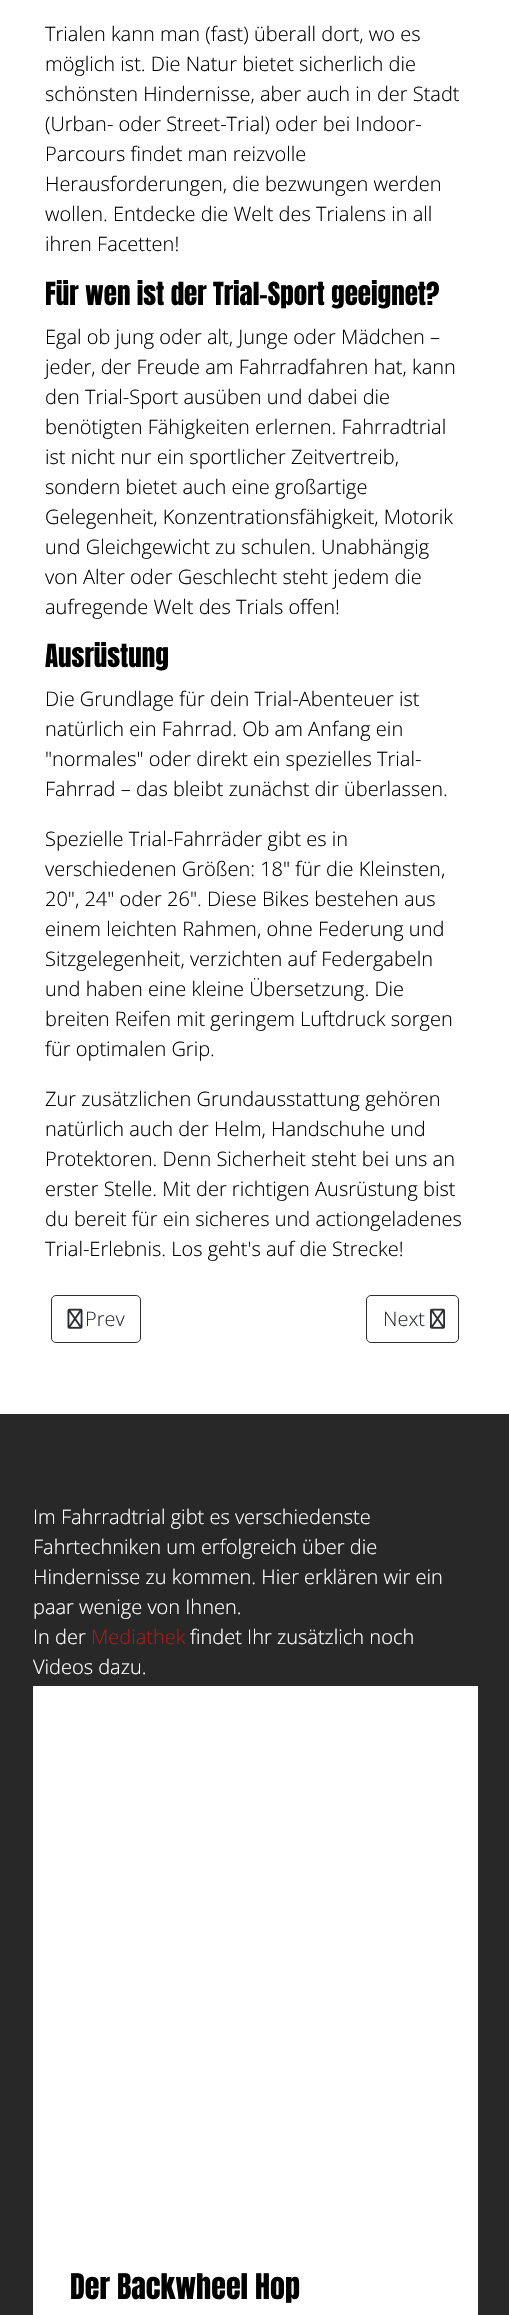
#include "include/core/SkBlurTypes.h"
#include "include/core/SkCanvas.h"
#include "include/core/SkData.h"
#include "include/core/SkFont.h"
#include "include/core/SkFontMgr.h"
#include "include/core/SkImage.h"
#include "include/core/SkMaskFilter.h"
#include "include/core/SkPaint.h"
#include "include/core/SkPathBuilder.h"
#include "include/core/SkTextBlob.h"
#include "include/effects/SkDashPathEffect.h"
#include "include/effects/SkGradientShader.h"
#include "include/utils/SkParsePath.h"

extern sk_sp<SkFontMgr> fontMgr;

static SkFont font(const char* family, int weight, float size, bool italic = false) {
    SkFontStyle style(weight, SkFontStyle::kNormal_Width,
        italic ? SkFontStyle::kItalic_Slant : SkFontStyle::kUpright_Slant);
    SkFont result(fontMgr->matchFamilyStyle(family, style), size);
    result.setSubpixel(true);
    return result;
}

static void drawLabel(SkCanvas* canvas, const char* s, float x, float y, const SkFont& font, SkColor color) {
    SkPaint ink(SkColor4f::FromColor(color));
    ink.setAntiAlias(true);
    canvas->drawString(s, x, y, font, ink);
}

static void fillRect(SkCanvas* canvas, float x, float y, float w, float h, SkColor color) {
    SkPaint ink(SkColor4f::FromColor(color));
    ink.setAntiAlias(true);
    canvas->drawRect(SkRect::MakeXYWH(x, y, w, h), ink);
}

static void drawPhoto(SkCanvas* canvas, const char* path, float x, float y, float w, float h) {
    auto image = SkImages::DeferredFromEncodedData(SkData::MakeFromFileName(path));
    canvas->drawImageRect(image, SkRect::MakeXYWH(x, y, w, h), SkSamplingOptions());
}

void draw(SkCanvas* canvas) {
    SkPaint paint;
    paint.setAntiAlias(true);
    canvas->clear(0xFF282828);
    fillRect(canvas, 0, 0, 509, 1414, 0xFFFFFFFF);
    SkFont font1 = font("Open Sans", 300, 20);
    drawLabel(canvas, "Trialen kann man (fast) überall dort, wo es", 45, 41, font1, 0xFF000000);
    drawLabel(canvas, "möglich ist. Die Natur bietet sicherlich die", 45, 71, font1, 0xFF000000);
    drawLabel(canvas, "schönsten Hindernisse, aber auch in der Stadt", 45, 101, font1, 0xFF000000);
    drawLabel(canvas, "(Urban- oder Street-Trial) oder bei Indoor-", 45, 131, font1, 0xFF000000);
    drawLabel(canvas, "Parcours findet man reizvolle", 45, 161, font1, 0xFF000000);
    drawLabel(canvas, "Herausforderungen, die bezwungen werden", 45, 191, font1, 0xFF000000);
    drawLabel(canvas, "wollen. Entdecke die Welt des Trialens in all", 45, 221, font1, 0xFF000000);
    drawLabel(canvas, "ihren Facetten!", 45, 251, font1, 0xFF000000);
    SkFont font2 = font("Anton", 400, 27);
    drawLabel(canvas, "Für wen ist der Trial-Sport geeignet?", 45, 305, font2, 0xFF000000);
    drawLabel(canvas, "Egal ob jung oder alt, Junge oder Mädchen –", 45, 344, font1, 0xFF000000);
    drawLabel(canvas, "jeder, der Freude am Fahrradfahren hat, kann", 45, 374, font1, 0xFF000000);
    drawLabel(canvas, "den Trial-Sport ausüben und dabei die", 45, 404, font1, 0xFF000000);
    drawLabel(canvas, "benötigten Fähigkeiten erlernen. Fahrradtrial", 45, 434, font1, 0xFF000000);
    drawLabel(canvas, "ist nicht nur ein sportlicher Zeitvertreib,", 45, 464, font1, 0xFF000000);
    drawLabel(canvas, "sondern bietet auch eine großartige", 45, 494, font1, 0xFF000000);
    drawLabel(canvas, "Gelegenheit, Konzentrationsfähigkeit, Motorik", 45, 524, font1, 0xFF000000);
    drawLabel(canvas, "und Gleichgewicht zu schulen. Unabhängig", 45, 554, font1, 0xFF000000);
    drawLabel(canvas, "von Alter oder Geschlecht steht jedem die", 45, 584, font1, 0xFF000000);
    drawLabel(canvas, "aufregende Welt des Trials offen!", 45, 614, font1, 0xFF000000);
    drawLabel(canvas, "Ausrüstung", 45, 667, font2, 0xFF000000);
    drawLabel(canvas, "Die Grundlage für dein Trial-Abenteuer ist", 45, 706, font1, 0xFF000000);
    drawLabel(canvas, "natürlich ein Fahrrad. Ob am Anfang ein", 45, 736, font1, 0xFF000000);
    drawLabel(canvas, "\"normales\" oder direkt ein spezielles Trial-", 45, 766, font1, 0xFF000000);
    drawLabel(canvas, "Fahrrad – das bleibt zunächst dir überlassen.", 45, 796, font1, 0xFF000000);
    drawLabel(canvas, "Spezielle Trial-Fahrräder gibt es in", 45, 846, font1, 0xFF000000);
    drawLabel(canvas, "verschiedenen Größen: 18\" für die Kleinsten,", 45, 876, font1, 0xFF000000);
    drawLabel(canvas, "20\", 24\" oder 26\". Diese Bikes bestehen aus", 45, 906, font1, 0xFF000000);
    drawLabel(canvas, "einem leichten Rahmen, ohne Federung und", 45, 936, font1, 0xFF000000);
    drawLabel(canvas, "Sitzgelegenheit, verzichten auf Federgabeln", 45, 966, font1, 0xFF000000);
    drawLabel(canvas, "und haben eine kleine Übersetzung. Die", 45, 996, font1, 0xFF000000);
    drawLabel(canvas, "breiten Reifen mit geringem Luftdruck sorgen", 45, 1026, font1, 0xFF000000);
    drawLabel(canvas, "für optimalen Grip.", 45, 1056, font1, 0xFF000000);
    drawLabel(canvas, "Zur zusätzlichen Grundausstattung gehören", 45, 1106, font1, 0xFF000000);
    drawLabel(canvas, "natürlich auch der Helm, Handschuhe und", 45, 1136, font1, 0xFF000000);
    drawLabel(canvas, "Protektoren. Denn Sicherheit steht bei uns an", 45, 1166, font1, 0xFF000000);
    drawLabel(canvas, "erster Stelle. Mit der richtigen Ausrüstung bist", 45, 1196, font1, 0xFF000000);
    drawLabel(canvas, "du bereit für ein sicheres und actiongeladenes", 45, 1226, font1, 0xFF000000);
    drawLabel(canvas, "Trial-Erlebnis. Los geht's auf die Strecke!", 45, 1256, font1, 0xFF000000);
    paint.setStroke(true);
    paint.setStrokeWidth(1);
    paint.setColor(0xFF2C2E36);
    canvas->drawRoundRect(SkRect::MakeXYWH(51.5f, 1295.5f, 89, 47), 4.5f, 4.5f, paint);
    drawPhoto(canvas, "assets/img1.png", 67, 1308, 16, 21);
    drawLabel(canvas, "Prev", 85, 1326, font1, 0xFF2C2E36);
    canvas->drawRoundRect(SkRect::MakeXYWH(366.5f, 1295.5f, 92, 47), 4.5f, 4.5f, paint);
    drawLabel(canvas, "Next", 383, 1326, font1, 0xFF2C2E36);
    drawPhoto(canvas, "assets/img2.png", 430, 1308, 15, 21);
    drawLabel(canvas, "Im Fahrradtrial gibt es verschiedenste", 33, 1524, font1, 0xFFFFFFFF);
    drawLabel(canvas, "Fahrtechniken um erfolgreich über die", 33, 1554, font1, 0xFFFFFFFF);
    drawLabel(canvas, "Hindernisse zu kommen. Hier erklären wir ein", 33, 1584, font1, 0xFFFFFFFF);
    drawLabel(canvas, "paar wenige von Ihnen.", 33, 1614, font1, 0xFFFFFFFF);
    drawLabel(canvas, "In der", 33, 1644, font1, 0xFFFFFFFF);
    drawLabel(canvas, "Mediathek", 91, 1644, font1, 0xFFA81C19);
    drawLabel(canvas, "findet Ihr zusätzlich noch", 190, 1644, font1, 0xFFFFFFFF);
    drawLabel(canvas, "Videos dazu.", 33, 1674, font1, 0xFFFFFFFF);
    fillRect(canvas, 33, 1686, 445, 629, 0xFFFFFFFF);
    SkFont font3 = font("Anton", 400, 30);
    drawLabel(canvas, "Der Backwheel Hop", 70, 2299, font3, 0xFF000000);
}
